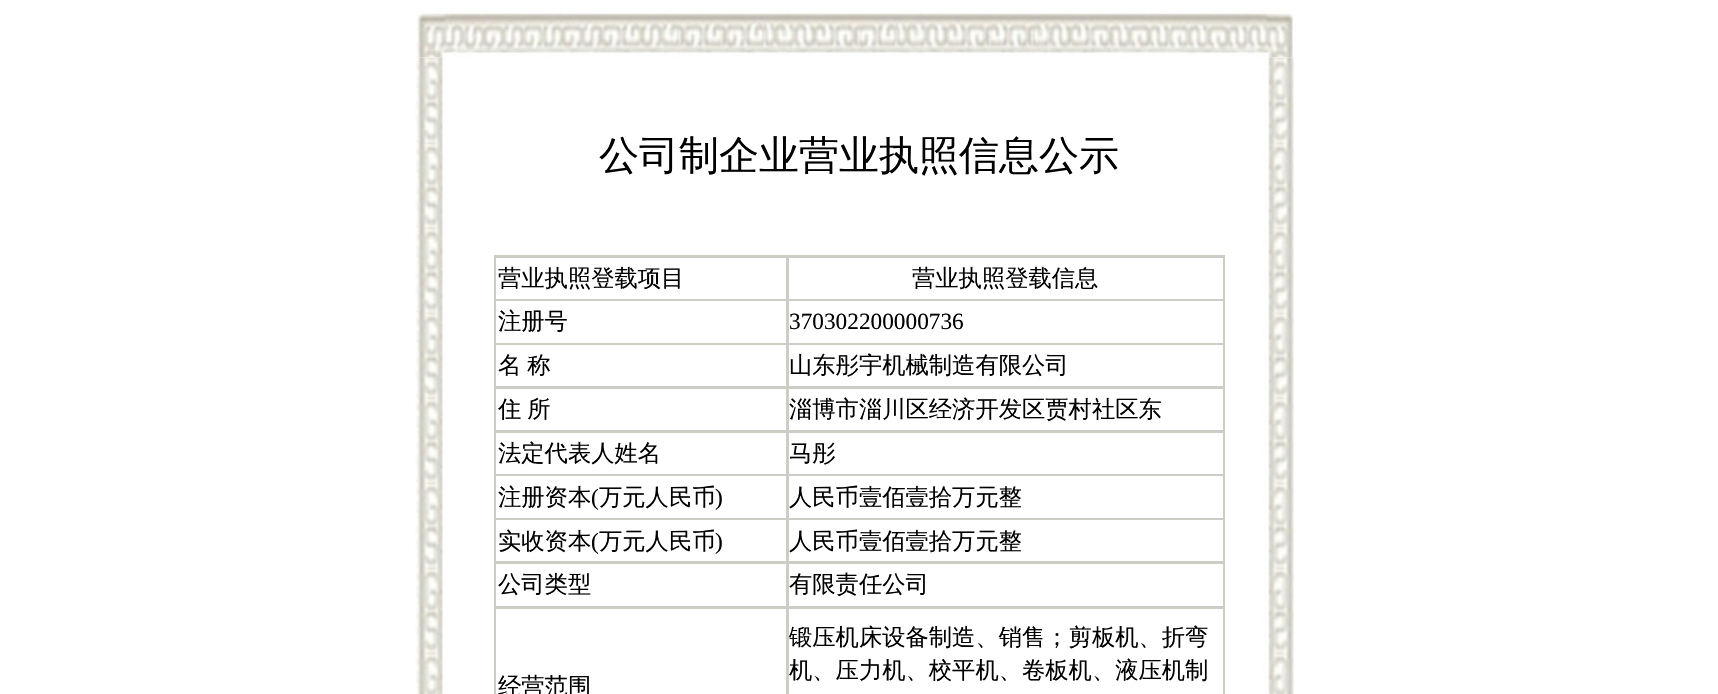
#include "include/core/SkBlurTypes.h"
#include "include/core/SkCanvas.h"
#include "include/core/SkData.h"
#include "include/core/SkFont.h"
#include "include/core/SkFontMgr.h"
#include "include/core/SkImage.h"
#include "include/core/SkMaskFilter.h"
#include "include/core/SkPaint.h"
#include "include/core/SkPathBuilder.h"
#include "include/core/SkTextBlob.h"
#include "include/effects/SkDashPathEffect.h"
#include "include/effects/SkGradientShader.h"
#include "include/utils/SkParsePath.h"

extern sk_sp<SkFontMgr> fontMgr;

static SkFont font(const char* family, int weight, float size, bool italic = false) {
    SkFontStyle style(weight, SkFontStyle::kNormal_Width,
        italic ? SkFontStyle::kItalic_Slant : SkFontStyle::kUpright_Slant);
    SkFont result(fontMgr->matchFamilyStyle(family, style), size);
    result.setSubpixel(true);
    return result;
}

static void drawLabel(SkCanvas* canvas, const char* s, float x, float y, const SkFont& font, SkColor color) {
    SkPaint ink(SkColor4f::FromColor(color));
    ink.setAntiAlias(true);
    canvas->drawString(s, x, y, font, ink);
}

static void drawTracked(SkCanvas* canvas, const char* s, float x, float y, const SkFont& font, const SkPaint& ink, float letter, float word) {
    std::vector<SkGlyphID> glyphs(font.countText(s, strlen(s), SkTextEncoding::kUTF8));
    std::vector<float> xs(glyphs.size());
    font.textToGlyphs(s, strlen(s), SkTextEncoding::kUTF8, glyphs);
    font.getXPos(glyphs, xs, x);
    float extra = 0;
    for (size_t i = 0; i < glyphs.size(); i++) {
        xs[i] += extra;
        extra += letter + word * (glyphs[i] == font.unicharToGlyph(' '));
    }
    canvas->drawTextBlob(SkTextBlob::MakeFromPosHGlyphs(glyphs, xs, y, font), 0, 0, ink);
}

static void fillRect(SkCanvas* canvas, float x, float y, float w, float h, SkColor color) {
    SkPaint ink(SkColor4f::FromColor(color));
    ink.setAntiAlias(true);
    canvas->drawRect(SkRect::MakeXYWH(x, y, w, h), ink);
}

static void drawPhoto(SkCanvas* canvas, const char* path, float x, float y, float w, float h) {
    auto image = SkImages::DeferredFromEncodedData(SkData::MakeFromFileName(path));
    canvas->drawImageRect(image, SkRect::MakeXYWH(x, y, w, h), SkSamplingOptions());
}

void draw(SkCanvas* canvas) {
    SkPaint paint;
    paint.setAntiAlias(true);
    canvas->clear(0xFFFFFFFF);
    drawPhoto(canvas, "assets/img1.png", 416, 10, 877, 48);
    drawPhoto(canvas, "assets/img2.png", 415, 57, 880, 637);
    SkFont font1 = font("WenQuanYi Zen Hei", 500, 40);
    drawLabel(canvas, "公司制企业营业执照信息公示", 599, 169, font1, 0xFF000000);
    fillRect(canvas, 494, 255, 731, 439, 0xFFCDCDC5);
    fillRect(canvas, 496, 258, 290, 41, 0xFFFFFFFF);
    SkFont font2 = font("WenQuanYi Zen Hei", 500, 23.3f);
    drawLabel(canvas, "营业执照登载项目", 498, 286, font2, 0xFF000000);
    fillRect(canvas, 789, 258, 434, 41, 0xFFFFFFFF);
    drawLabel(canvas, "营业执照登载信息", 912, 286, font2, 0xFF000000);
    fillRect(canvas, 496, 301, 290, 42, 0xFFFFFFFF);
    drawLabel(canvas, "注册号", 498, 329, font2, 0xFF000000);
    fillRect(canvas, 789, 301, 434, 42, 0xFFFFFFFF);
    SkFont font3 = font("Liberation Serif", 400, 23.3f);
    drawLabel(canvas, "370302200000736", 789, 329, font3, 0xFF000000);
    fillRect(canvas, 496, 345, 290, 41, 0xFFFFFFFF);
    paint.setColor(0xFF000000);
    drawTracked(canvas, "名 称", 498, 373, font2, paint, 0, -1);
    fillRect(canvas, 789, 345, 434, 41, 0xFFFFFFFF);
    drawLabel(canvas, "山东彤宇机械制造有限公司", 789, 373, font2, 0xFF000000);
    fillRect(canvas, 496, 389, 290, 41, 0xFFFFFFFF);
    drawTracked(canvas, "住 所", 498, 417, font2, paint, 0, -1);
    fillRect(canvas, 789, 389, 434, 41, 0xFFFFFFFF);
    drawLabel(canvas, "淄博市淄川区经济开发区贾村社区东", 789, 417, font2, 0xFF000000);
    fillRect(canvas, 496, 433, 290, 41, 0xFFFFFFFF);
    drawLabel(canvas, "法定代表人姓名", 498, 461, font2, 0xFF000000);
    fillRect(canvas, 789, 433, 434, 41, 0xFFFFFFFF);
    drawLabel(canvas, "马彤", 789, 461, font2, 0xFF000000);
    fillRect(canvas, 496, 476, 290, 42, 0xFFFFFFFF);
    drawLabel(canvas, "注册资本", 498, 505, font2, 0xFF000000);
    drawLabel(canvas, "(", 591, 505, font3, 0xFF000000);
    drawLabel(canvas, "万元人民币", 599, 505, font2, 0xFF000000);
    drawLabel(canvas, ")", 715, 505, font3, 0xFF000000);
    fillRect(canvas, 789, 476, 434, 42, 0xFFFFFFFF);
    drawLabel(canvas, "人民币壹佰壹拾万元整", 789, 505, font2, 0xFF000000);
    fillRect(canvas, 496, 520, 290, 41, 0xFFFFFFFF);
    drawLabel(canvas, "实收资本", 498, 549, font2, 0xFF000000);
    drawLabel(canvas, "(", 591, 549, font3, 0xFF000000);
    drawLabel(canvas, "万元人民币", 599, 549, font2, 0xFF000000);
    drawLabel(canvas, ")", 715, 549, font3, 0xFF000000);
    fillRect(canvas, 789, 520, 434, 41, 0xFFFFFFFF);
    drawLabel(canvas, "人民币壹佰壹拾万元整", 789, 549, font2, 0xFF000000);
    fillRect(canvas, 496, 564, 290, 42, 0xFFFFFFFF);
    drawLabel(canvas, "公司类型", 498, 592, font2, 0xFF000000);
    fillRect(canvas, 789, 564, 434, 42, 0xFFFFFFFF);
    drawLabel(canvas, "有限责任公司", 789, 592, font2, 0xFF000000);
    fillRect(canvas, 789, 609, 434, 85, 0xFFFFFFFF);
    drawLabel(canvas, "锻压机床设备制造、销售；剪板机、折弯", 789, 645, font2, 0xFF000000);
    drawLabel(canvas, "机、压力机、校平机、卷板机、液压机制", 789, 678, font2, 0xFF000000);
    fillRect(canvas, 496, 609, 290, 85, 0xFFFFFFFF);
    drawLabel(canvas, "经营范围", 498, 694, font2, 0xFF000000);
}
